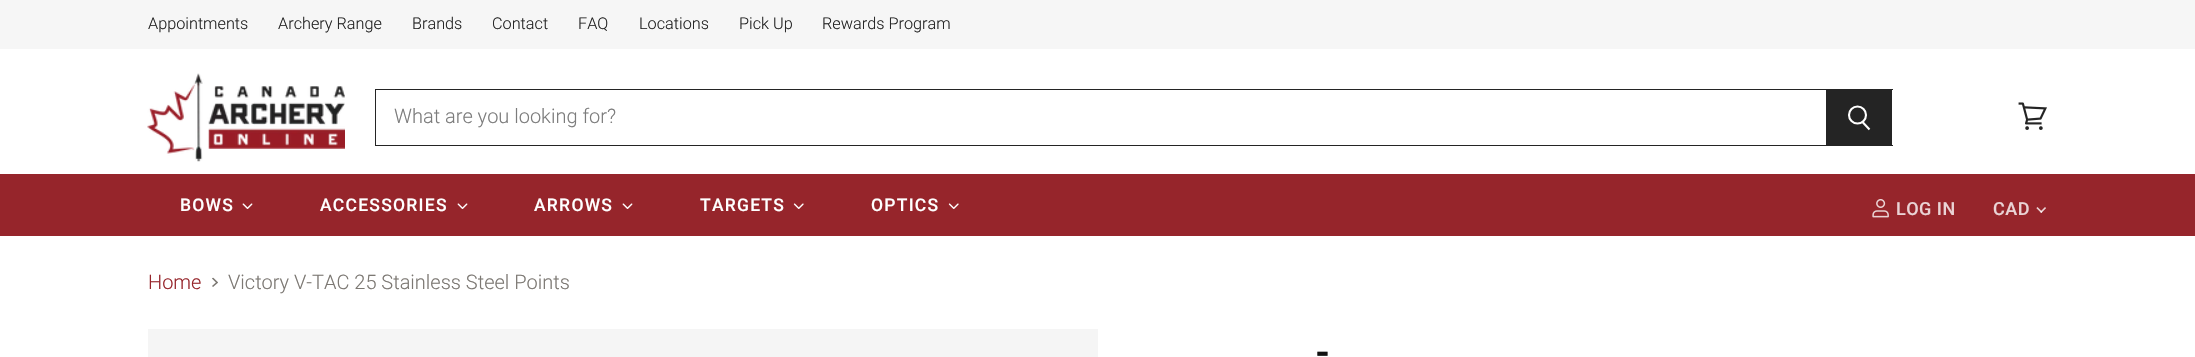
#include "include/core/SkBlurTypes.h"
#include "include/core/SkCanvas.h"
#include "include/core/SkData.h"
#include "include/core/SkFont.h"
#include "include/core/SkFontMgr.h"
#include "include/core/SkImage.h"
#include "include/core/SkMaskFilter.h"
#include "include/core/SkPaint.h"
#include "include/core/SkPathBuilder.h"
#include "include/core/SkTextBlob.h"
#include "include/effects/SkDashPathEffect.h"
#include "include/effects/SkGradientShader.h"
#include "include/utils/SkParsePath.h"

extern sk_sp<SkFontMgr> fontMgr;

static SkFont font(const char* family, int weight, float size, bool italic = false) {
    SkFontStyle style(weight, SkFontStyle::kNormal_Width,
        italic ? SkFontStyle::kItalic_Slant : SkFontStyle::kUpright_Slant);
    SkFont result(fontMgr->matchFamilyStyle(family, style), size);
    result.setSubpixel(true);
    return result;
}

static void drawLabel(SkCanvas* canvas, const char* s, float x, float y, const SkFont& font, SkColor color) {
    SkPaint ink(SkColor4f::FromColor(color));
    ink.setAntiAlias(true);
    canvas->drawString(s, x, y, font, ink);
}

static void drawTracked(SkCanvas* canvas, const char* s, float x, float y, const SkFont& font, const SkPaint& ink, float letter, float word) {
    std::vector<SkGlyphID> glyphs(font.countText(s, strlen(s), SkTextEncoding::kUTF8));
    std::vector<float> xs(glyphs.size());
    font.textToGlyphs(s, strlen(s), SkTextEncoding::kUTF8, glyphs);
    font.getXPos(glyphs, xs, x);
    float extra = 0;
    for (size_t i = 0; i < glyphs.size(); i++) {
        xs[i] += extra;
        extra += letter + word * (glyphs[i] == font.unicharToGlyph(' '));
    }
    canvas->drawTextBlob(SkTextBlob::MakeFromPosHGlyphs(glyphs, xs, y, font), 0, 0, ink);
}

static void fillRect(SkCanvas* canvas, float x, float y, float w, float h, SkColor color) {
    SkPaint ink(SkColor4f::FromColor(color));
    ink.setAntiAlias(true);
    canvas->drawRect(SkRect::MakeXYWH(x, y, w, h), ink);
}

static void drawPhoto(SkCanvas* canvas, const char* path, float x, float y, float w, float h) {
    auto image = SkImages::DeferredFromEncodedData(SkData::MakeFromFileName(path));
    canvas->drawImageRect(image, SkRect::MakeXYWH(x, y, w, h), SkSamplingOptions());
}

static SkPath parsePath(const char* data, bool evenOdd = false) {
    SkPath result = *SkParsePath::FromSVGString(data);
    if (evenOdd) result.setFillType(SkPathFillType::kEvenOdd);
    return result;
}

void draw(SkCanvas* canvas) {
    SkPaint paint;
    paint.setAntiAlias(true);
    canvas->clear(0xFFFFFFFF);
    fillRect(canvas, 0, 0, 2195, 49, 0xFFF6F6F6);
    SkFont font1 = font("Roboto", 300, 16.25f);
    drawLabel(canvas, "Appointments", 148, 29, font1, 0xFF242424);
    drawLabel(canvas, "Archery Range", 278, 29, font1, 0xFF242424);
    drawLabel(canvas, "Brands", 412, 29, font1, 0xFF242424);
    drawLabel(canvas, "Contact", 492, 29, font1, 0xFF242424);
    drawLabel(canvas, "FAQ", 578, 29, font1, 0xFF242424);
    drawLabel(canvas, "Locations", 639, 29, font1, 0xFF242424);
    drawLabel(canvas, "Pick Up", 739, 29, font1, 0xFF242424);
    drawLabel(canvas, "Rewards Program", 822, 29, font1, 0xFF242424);
    drawPhoto(canvas, "assets/img1.png", 147, 73, 198, 89);
    fillRect(canvas, 1826, 90, 65, 55, 0xFF242424);
    fillRect(canvas, 375, 89, 1518, 1, 0xFF242424);
    fillRect(canvas, 1891, 89, 1, 57, 0xFF242424);
    fillRect(canvas, 375, 145, 1518, 1, 0xFF242424);
    paint.setStroke(true);
    paint.setStrokeWidth(2.1f);
    paint.setColor(0xFFFFFFFF);
    canvas->drawPath(parsePath("M1869.5 129.5L1862.5 122"), paint);
    canvas->drawCircle(1857.5f, 115, 8.5f, paint);
    fillRect(canvas, 375, 89, 1, 57, 0xFF242424);
    SkFont font2 = font("Roboto", 300, 20);
    drawLabel(canvas, "What are you looking for?", 394, 123, font2, 0xFF7C7C7C);
    drawPhoto(canvas, "assets/img2.png", 2018, 102, 29, 28);
    fillRect(canvas, 0, 174, 2195, 62, 0xFF96252B);
    SkFont font3 = font("Roboto", 500, 17.5f);
    paint.setStroke(false);
    drawTracked(canvas, "BOWS", 180, 211, font3, paint, 1.25f, 0);
    drawPhoto(canvas, "assets/img3.png", 242, 203, 11, 6);
    drawTracked(canvas, "ACCESSORIES", 320, 211, font3, paint, 1.25f, 0);
    drawPhoto(canvas, "assets/img3.png", 457, 203, 11, 6);
    drawTracked(canvas, "ARROWS", 534, 211, font3, paint, 1.25f, 0);
    drawPhoto(canvas, "assets/img3.png", 622, 203, 11, 6);
    drawTracked(canvas, "TARGETS", 700, 211, font3, paint, 1.25f, 0);
    drawPhoto(canvas, "assets/img4.png", 793, 203, 11, 6);
    drawTracked(canvas, "OPTICS", 871, 211, font3, paint, 1.25f, 0);
    drawPhoto(canvas, "assets/img4.png", 948, 203, 11, 6);
    drawPhoto(canvas, "assets/img5.png", 1872, 199, 17, 19);
    SkFont font4 = font("Roboto", 500, 18);
    paint.setColor(0xFFEAD3D5);
    drawTracked(canvas, "LOG IN", 1896, 215, font4, paint, 0.5f, 0);
    drawTracked(canvas, "CAD", 1993, 215, font4, paint, 0.5f, 0);
    drawPhoto(canvas, "assets/img6.png", 2036, 207, 10, 6);
    drawLabel(canvas, "Home", 148, 289, font2, 0xFF96252B);
    canvas->save();
    canvas->clipPath(parsePath("M211.5 287.5V277.5H218V287.5Z"), true);
    paint.setStroke(true);
    paint.setStrokeWidth(1.6f);
    paint.setColor(0xFF7C7873);
    canvas->drawPath(parsePath("M212.5 286.5L217 282.5L212.5 278"), paint);
    canvas->restore();
    drawLabel(canvas, "Victory V-TAC 25 Stainless Steel Points", 228, 289, font2, 0xFF7C7873);
    fillRect(canvas, 148, 329, 950, 28, 0xFFF5F5F5);
    SkFont font5 = font("Roboto Slab", 700, 37);
    drawLabel(canvas, "-", 1315, 365, font5, 0xFF111111);
}
